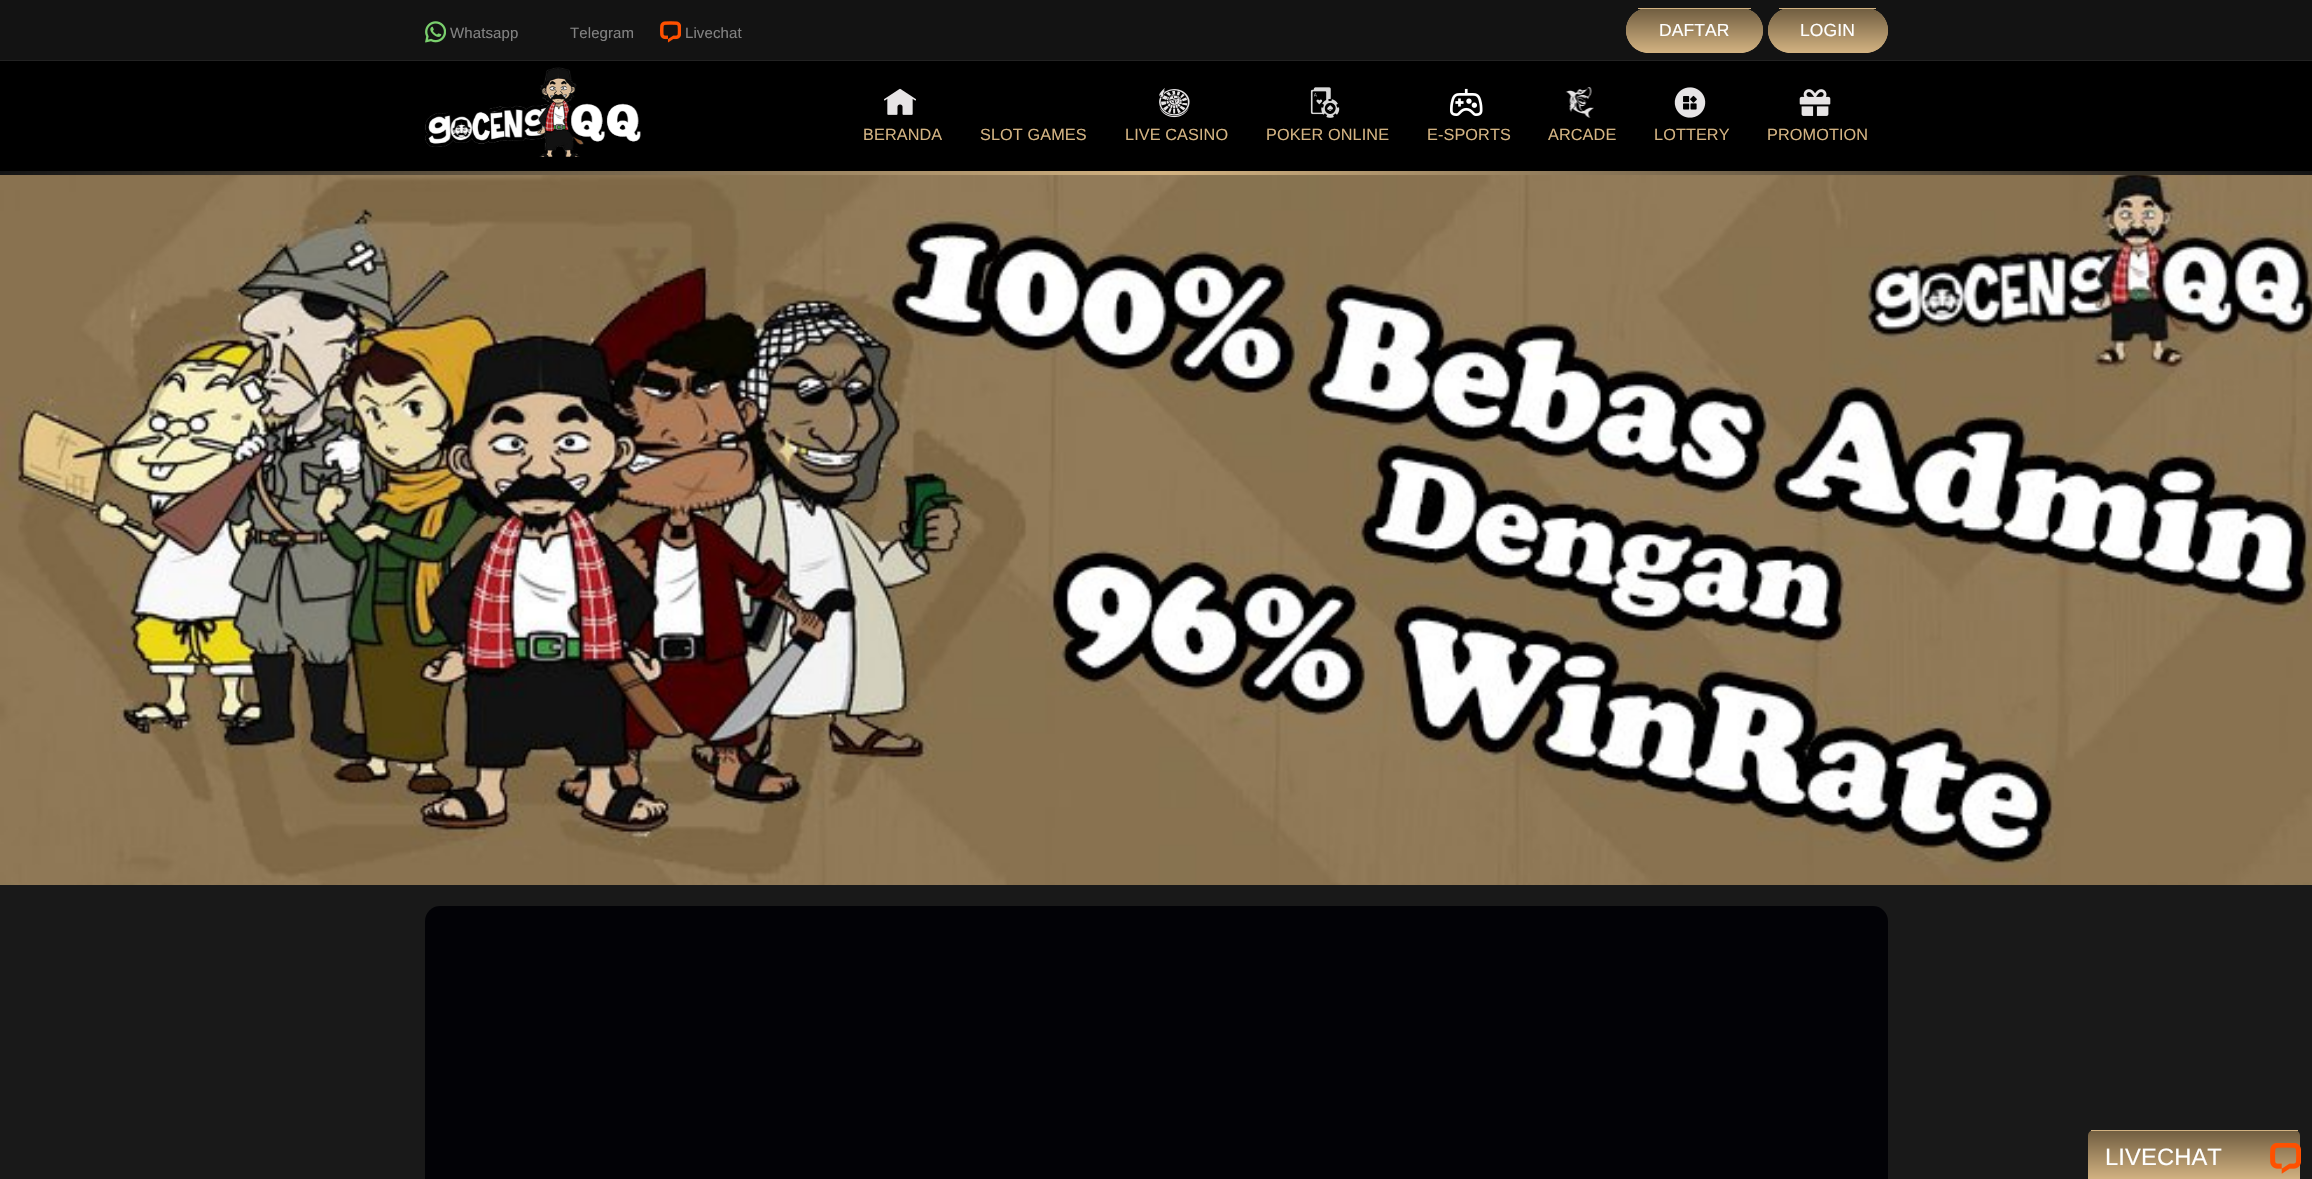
#include "include/core/SkBlurTypes.h"
#include "include/core/SkCanvas.h"
#include "include/core/SkData.h"
#include "include/core/SkFont.h"
#include "include/core/SkFontMgr.h"
#include "include/core/SkImage.h"
#include "include/core/SkMaskFilter.h"
#include "include/core/SkPaint.h"
#include "include/core/SkPathBuilder.h"
#include "include/core/SkTextBlob.h"
#include "include/effects/SkDashPathEffect.h"
#include "include/effects/SkGradientShader.h"
#include "include/utils/SkParsePath.h"

extern sk_sp<SkFontMgr> fontMgr;

static SkFont font(const char* family, int weight, float size, bool italic = false) {
    SkFontStyle style(weight, SkFontStyle::kNormal_Width,
        italic ? SkFontStyle::kItalic_Slant : SkFontStyle::kUpright_Slant);
    SkFont result(fontMgr->matchFamilyStyle(family, style), size);
    result.setSubpixel(true);
    return result;
}

static void drawTracked(SkCanvas* canvas, const char* s, float x, float y, const SkFont& font, const SkPaint& ink, float letter, float word) {
    std::vector<SkGlyphID> glyphs(font.countText(s, strlen(s), SkTextEncoding::kUTF8));
    std::vector<float> xs(glyphs.size());
    font.textToGlyphs(s, strlen(s), SkTextEncoding::kUTF8, glyphs);
    font.getXPos(glyphs, xs, x);
    float extra = 0;
    for (size_t i = 0; i < glyphs.size(); i++) {
        xs[i] += extra;
        extra += letter + word * (glyphs[i] == font.unicharToGlyph(' '));
    }
    canvas->drawTextBlob(SkTextBlob::MakeFromPosHGlyphs(glyphs, xs, y, font), 0, 0, ink);
}

static void fillRect(SkCanvas* canvas, float x, float y, float w, float h, SkColor color) {
    SkPaint ink(SkColor4f::FromColor(color));
    ink.setAntiAlias(true);
    canvas->drawRect(SkRect::MakeXYWH(x, y, w, h), ink);
}

static void fillRRect(SkCanvas* canvas, float x, float y, float w, float h, float radius, SkColor color) {
    SkPaint ink(SkColor4f::FromColor(color));
    ink.setAntiAlias(true);
    canvas->drawRoundRect(SkRect::MakeXYWH(x, y, w, h), radius, radius, ink);
}

static void drawPhoto(SkCanvas* canvas, const char* path, float x, float y, float w, float h) {
    auto image = SkImages::DeferredFromEncodedData(SkData::MakeFromFileName(path));
    canvas->drawImageRect(image, SkRect::MakeXYWH(x, y, w, h), SkSamplingOptions());
}

static SkPath parsePath(const char* data, bool evenOdd = false) {
    SkPath result = *SkParsePath::FromSVGString(data);
    if (evenOdd) result.setFillType(SkPathFillType::kEvenOdd);
    return result;
}

void draw(SkCanvas* canvas) {
    SkPaint paint;
    paint.setAntiAlias(true);
    canvas->clear(0xFF191919);
    fillRect(canvas, 0, 0, 2312, 60, 0xFF131313);
    drawPhoto(canvas, "assets/img1.png", 425, 21, 21, 22);
    SkFont font1 = font("Liberation Sans", 400, 15);
    paint.setColor(0xFF828282);
    drawTracked(canvas, "Whatsapp", 450, 38, font1, paint, 0.1f, 0);
    drawTracked(canvas, "Telegram", 570, 38, font1, paint, 0.1f, 0);
    drawPhoto(canvas, "assets/img2.png", 660, 21, 21, 22);
    drawTracked(canvas, "Livechat", 685, 38, font1, paint, 0.1f, 0);
    fillRRect(canvas, 1626, 8, 137, 45, 22.5f, 0xFFD3B382);
    canvas->save();
    canvas->clipPath(parsePath("M1648.5 8H1740.5C1753 8 1763 18 1763 30.5C1763 43 1753 53 1740.5 53H1648.5C1636 53 1626 43 1626 30.5C1626 18 1636 8 1648.5 8Z"), true);
    {
        const SkColor colors[] = {0xFF715E41, 0xFFD3B382};
        const float stops[] = {0, 1};
        const SkPoint ends[] = {{1694, 9}, {1694, 53}};
        paint.setShader(SkGradientShader::MakeLinear(ends, colors, stops, 2, SkTileMode::kClamp));
        paint.setAlpha(255);
    }
    canvas->drawPath(parsePath("M1626 9H1763V30.5C1763 43 1753 53 1740.5 53H1648.5C1636 53 1626 43 1626 30.5Z"), paint);
    canvas->restore();
    fillRect(canvas, 1638, 8, 113, 1, 0xFFD3B382);
    SkFont font2 = font("Liberation Sans", 400, 17.5f);
    paint.setShader(nullptr);
    paint.setColor(0xFFFFFFFF);
    drawTracked(canvas, "DAFTAR", 1659, 36, font2, paint, 0.1f, 0);
    fillRRect(canvas, 1768, 8, 120, 45, 22.5f, 0xFFD3B382);
    canvas->save();
    canvas->clipPath(parsePath("M1790.5 8H1865.5C1878 8 1888 18 1888 30.5C1888 43 1878 53 1865.5 53H1790.5C1778 53 1768 43 1768 30.5C1768 18 1778 8 1790.5 8Z"), true);
    {
        const SkColor colors[] = {0xFF715E41, 0xFFD3B382};
        const float stops[] = {0, 1};
        const SkPoint ends[] = {{1828, 9}, {1828, 53}};
        paint.setShader(SkGradientShader::MakeLinear(ends, colors, stops, 2, SkTileMode::kClamp));
        paint.setAlpha(255);
    }
    canvas->drawPath(parsePath("M1768 9H1888V30.5C1888 43 1878 53 1865.5 53H1790.5C1778 53 1768 43 1768 30.5Z"), paint);
    canvas->restore();
    fillRect(canvas, 1779, 8, 97, 1, 0xFFD3B382);
    paint.setShader(nullptr);
    paint.setColor(0xFFFFFFFF);
    drawTracked(canvas, "LOGIN", 1800, 36, font2, paint, 0.1f, 0);
    fillRect(canvas, 0, 61, 2312, 110, 0xFF000000);
    fillRect(canvas, 0, 60, 2312, 1, 0xFF222222);
    drawPhoto(canvas, "assets/img3.png", 425, 67, 216, 90);
    drawPhoto(canvas, "assets/img4.png", 884, 88, 32, 27);
    SkFont font3 = font("Liberation Sans", 400, 16.25f);
    paint.setColor(0xFFD3B382);
    drawTracked(canvas, "BERANDA", 863, 140, font3, paint, 0.1f, 0);
    drawTracked(canvas, "SLOT GAMES", 980, 140, font3, paint, 0.1f, 0);
    drawPhoto(canvas, "assets/img5.png", 1159, 88, 31, 30);
    drawTracked(canvas, "LIVE CASINO", 1125, 140, font3, paint, 0.1f, 0);
    drawPhoto(canvas, "assets/img6.png", 1310, 87, 30, 31);
    drawTracked(canvas, "POKER ONLINE", 1266, 140, font3, paint, 0.1f, 0);
    drawPhoto(canvas, "assets/img7.png", 1450, 88, 33, 28);
    drawTracked(canvas, "E-SPORTS", 1427, 140, font3, paint, 0.1f, 0);
    drawPhoto(canvas, "assets/img8.png", 1565, 87, 29, 31);
    drawTracked(canvas, "ARCADE", 1548, 140, font3, paint, 0.1f, 0);
    drawPhoto(canvas, "assets/img9.png", 1674, 87, 32, 31);
    drawTracked(canvas, "LOTTERY", 1654, 140, font3, paint, 0.1f, 0);
    drawPhoto(canvas, "assets/img10.png", 1799, 89, 32, 27);
    drawTracked(canvas, "PROMOTION", 1767, 140, font3, paint, 0.1f, 0);
    {
        const SkColor colors[] = {0xFF141414, 0xFFD3B382, 0xFF141414};
        const float stops[] = {0, 0.5f, 1};
        const SkPoint ends[] = {{0, 173}, {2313, 173}};
        paint.setShader(SkGradientShader::MakeLinear(ends, colors, stops, 3, SkTileMode::kClamp));
        paint.setAlpha(255);
    }
    canvas->drawRect(SkRect::MakeXYWH(0, 171, 2312, 4), paint);
    drawPhoto(canvas, "assets/img11.png", 0, 175, 2312, 710);
    fillRRect(canvas, 425, 906, 1463, 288, 15, 0xFF020206);
    canvas->save();
    canvas->clipPath(parsePath("M2094 1130H2294C2297.5 1130 2300 1132.5 2300 1136V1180H2088V1136C2088 1132.5 2090.5 1130 2094 1130Z"), true);
    {
        const SkColor colors[] = {0xFF715E41, 0xFFD3B382};
        const float stops[] = {0, 1};
        const SkPoint ends[] = {{2194, 1131}, {2194, 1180}};
        paint.setShader(SkGradientShader::MakeLinear(ends, colors, stops, 2, SkTileMode::kClamp));
        paint.setAlpha(255);
    }
    canvas->drawRect(SkRect::MakeXYWH(2088, 1131, 212, 48), paint);
    canvas->restore();
    fillRect(canvas, 2091, 1130, 207, 1, 0xFFD3B382);
    SkFont font4 = font("Liberation Sans", 400, 23.75f);
    paint.setShader(nullptr);
    paint.setColor(0xFFFFFFFF);
    drawTracked(canvas, "LIVECHAT", 2105, 1165, font4, paint, 0.1f, 0);
    drawPhoto(canvas, "assets/img12.png", 2270, 1143, 31, 31);
}
